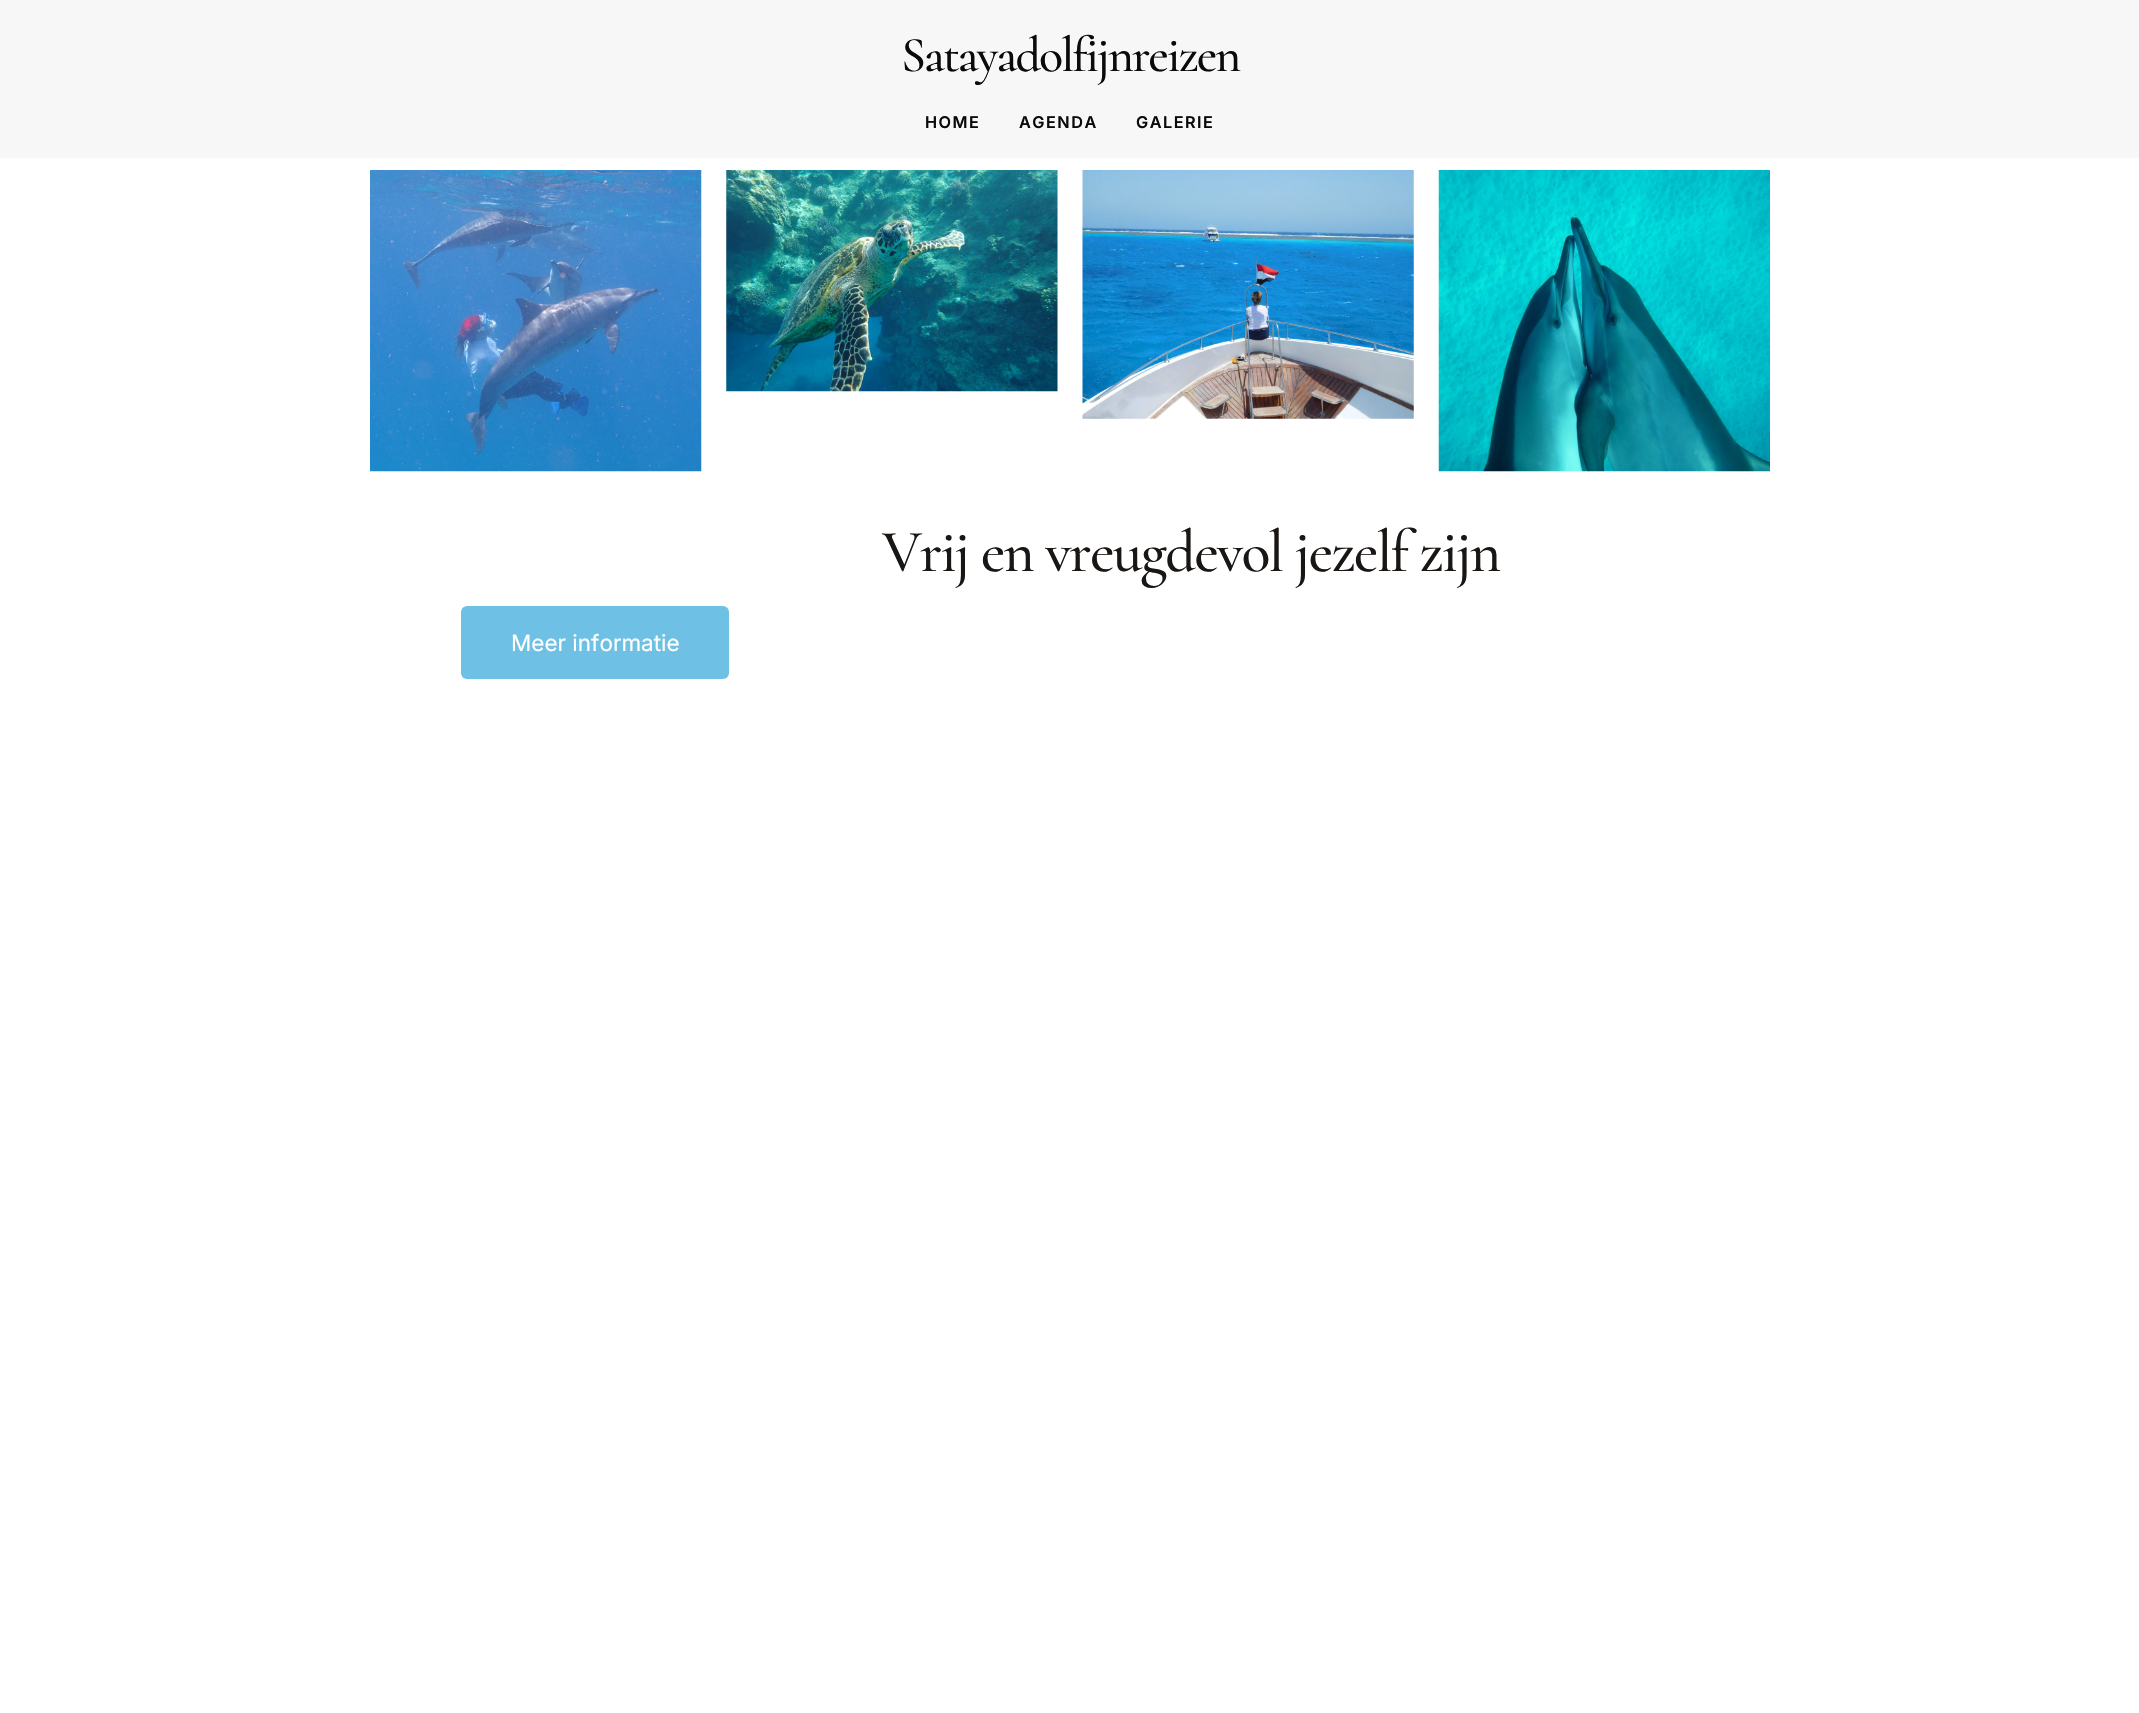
#include "include/core/SkBlurTypes.h"
#include "include/core/SkCanvas.h"
#include "include/core/SkData.h"
#include "include/core/SkFont.h"
#include "include/core/SkFontMgr.h"
#include "include/core/SkImage.h"
#include "include/core/SkMaskFilter.h"
#include "include/core/SkPaint.h"
#include "include/core/SkPathBuilder.h"
#include "include/core/SkTextBlob.h"
#include "include/effects/SkDashPathEffect.h"
#include "include/effects/SkGradientShader.h"
#include "include/utils/SkParsePath.h"

extern sk_sp<SkFontMgr> fontMgr;

static SkFont font(const char* family, int weight, float size, bool italic = false) {
    SkFontStyle style(weight, SkFontStyle::kNormal_Width,
        italic ? SkFontStyle::kItalic_Slant : SkFontStyle::kUpright_Slant);
    SkFont result(fontMgr->matchFamilyStyle(family, style), size);
    result.setSubpixel(true);
    return result;
}

static void drawLabel(SkCanvas* canvas, const char* s, float x, float y, const SkFont& font, SkColor color) {
    SkPaint ink(SkColor4f::FromColor(color));
    ink.setAntiAlias(true);
    canvas->drawString(s, x, y, font, ink);
}

static void drawTracked(SkCanvas* canvas, const char* s, float x, float y, const SkFont& font, const SkPaint& ink, float letter, float word) {
    std::vector<SkGlyphID> glyphs(font.countText(s, strlen(s), SkTextEncoding::kUTF8));
    std::vector<float> xs(glyphs.size());
    font.textToGlyphs(s, strlen(s), SkTextEncoding::kUTF8, glyphs);
    font.getXPos(glyphs, xs, x);
    float extra = 0;
    for (size_t i = 0; i < glyphs.size(); i++) {
        xs[i] += extra;
        extra += letter + word * (glyphs[i] == font.unicharToGlyph(' '));
    }
    canvas->drawTextBlob(SkTextBlob::MakeFromPosHGlyphs(glyphs, xs, y, font), 0, 0, ink);
}

static void fillRect(SkCanvas* canvas, float x, float y, float w, float h, SkColor color) {
    SkPaint ink(SkColor4f::FromColor(color));
    ink.setAntiAlias(true);
    canvas->drawRect(SkRect::MakeXYWH(x, y, w, h), ink);
}

static void fillRRect(SkCanvas* canvas, float x, float y, float w, float h, float radius, SkColor color) {
    SkPaint ink(SkColor4f::FromColor(color));
    ink.setAntiAlias(true);
    canvas->drawRoundRect(SkRect::MakeXYWH(x, y, w, h), radius, radius, ink);
}

static void drawPhoto(SkCanvas* canvas, const char* path, float x, float y, float w, float h) {
    auto image = SkImages::DeferredFromEncodedData(SkData::MakeFromFileName(path));
    canvas->drawImageRect(image, SkRect::MakeXYWH(x, y, w, h), SkSamplingOptions());
}

void draw(SkCanvas* canvas) {
    SkPaint paint;
    paint.setAntiAlias(true);
    canvas->clear(0xFFFFFFFF);
    fillRect(canvas, 0, 0, 2139, 158, 0xFFF7F7F7);
    SkFont font1 = font("Cormorant", 500, 50);
    paint.setColor(0xFF0A0A0A);
    drawTracked(canvas, "Satayadolfijnreizen", 901, 71, font1, paint, -2, 0);
    SkFont font2 = font("Inter", 600, 16.25f);
    drawTracked(canvas, "HOME", 925, 128, font2, paint, 1.5f, 0);
    drawTracked(canvas, "AGENDA", 1019, 128, font2, paint, 1.5f, 0);
    drawTracked(canvas, "GALERIE", 1136, 128, font2, paint, 1.5f, 0);
    drawPhoto(canvas, "assets/img1.png", 370, 170, 332, 302);
    drawPhoto(canvas, "assets/img2.png", 726, 170, 332, 222);
    drawPhoto(canvas, "assets/img3.png", 1082, 170, 332, 249);
    drawPhoto(canvas, "assets/img4.png", 1438, 170, 332, 302);
    SkFont font3 = font("Cormorant", 500, 60);
    paint.setColor(0xFF191614);
    drawTracked(canvas, "Vrij en vreugdevol jezelf zijn", 882, 571, font3, paint, -1.8f, 0);
    fillRRect(canvas, 461, 606, 268, 73, 6, 0xFF6EC1E4);
    SkFont font4 = font("Inter", 400, 22.5f);
    drawLabel(canvas, "Meer informatie", 511, 651, font4, 0xFFFFFFFF);
}
